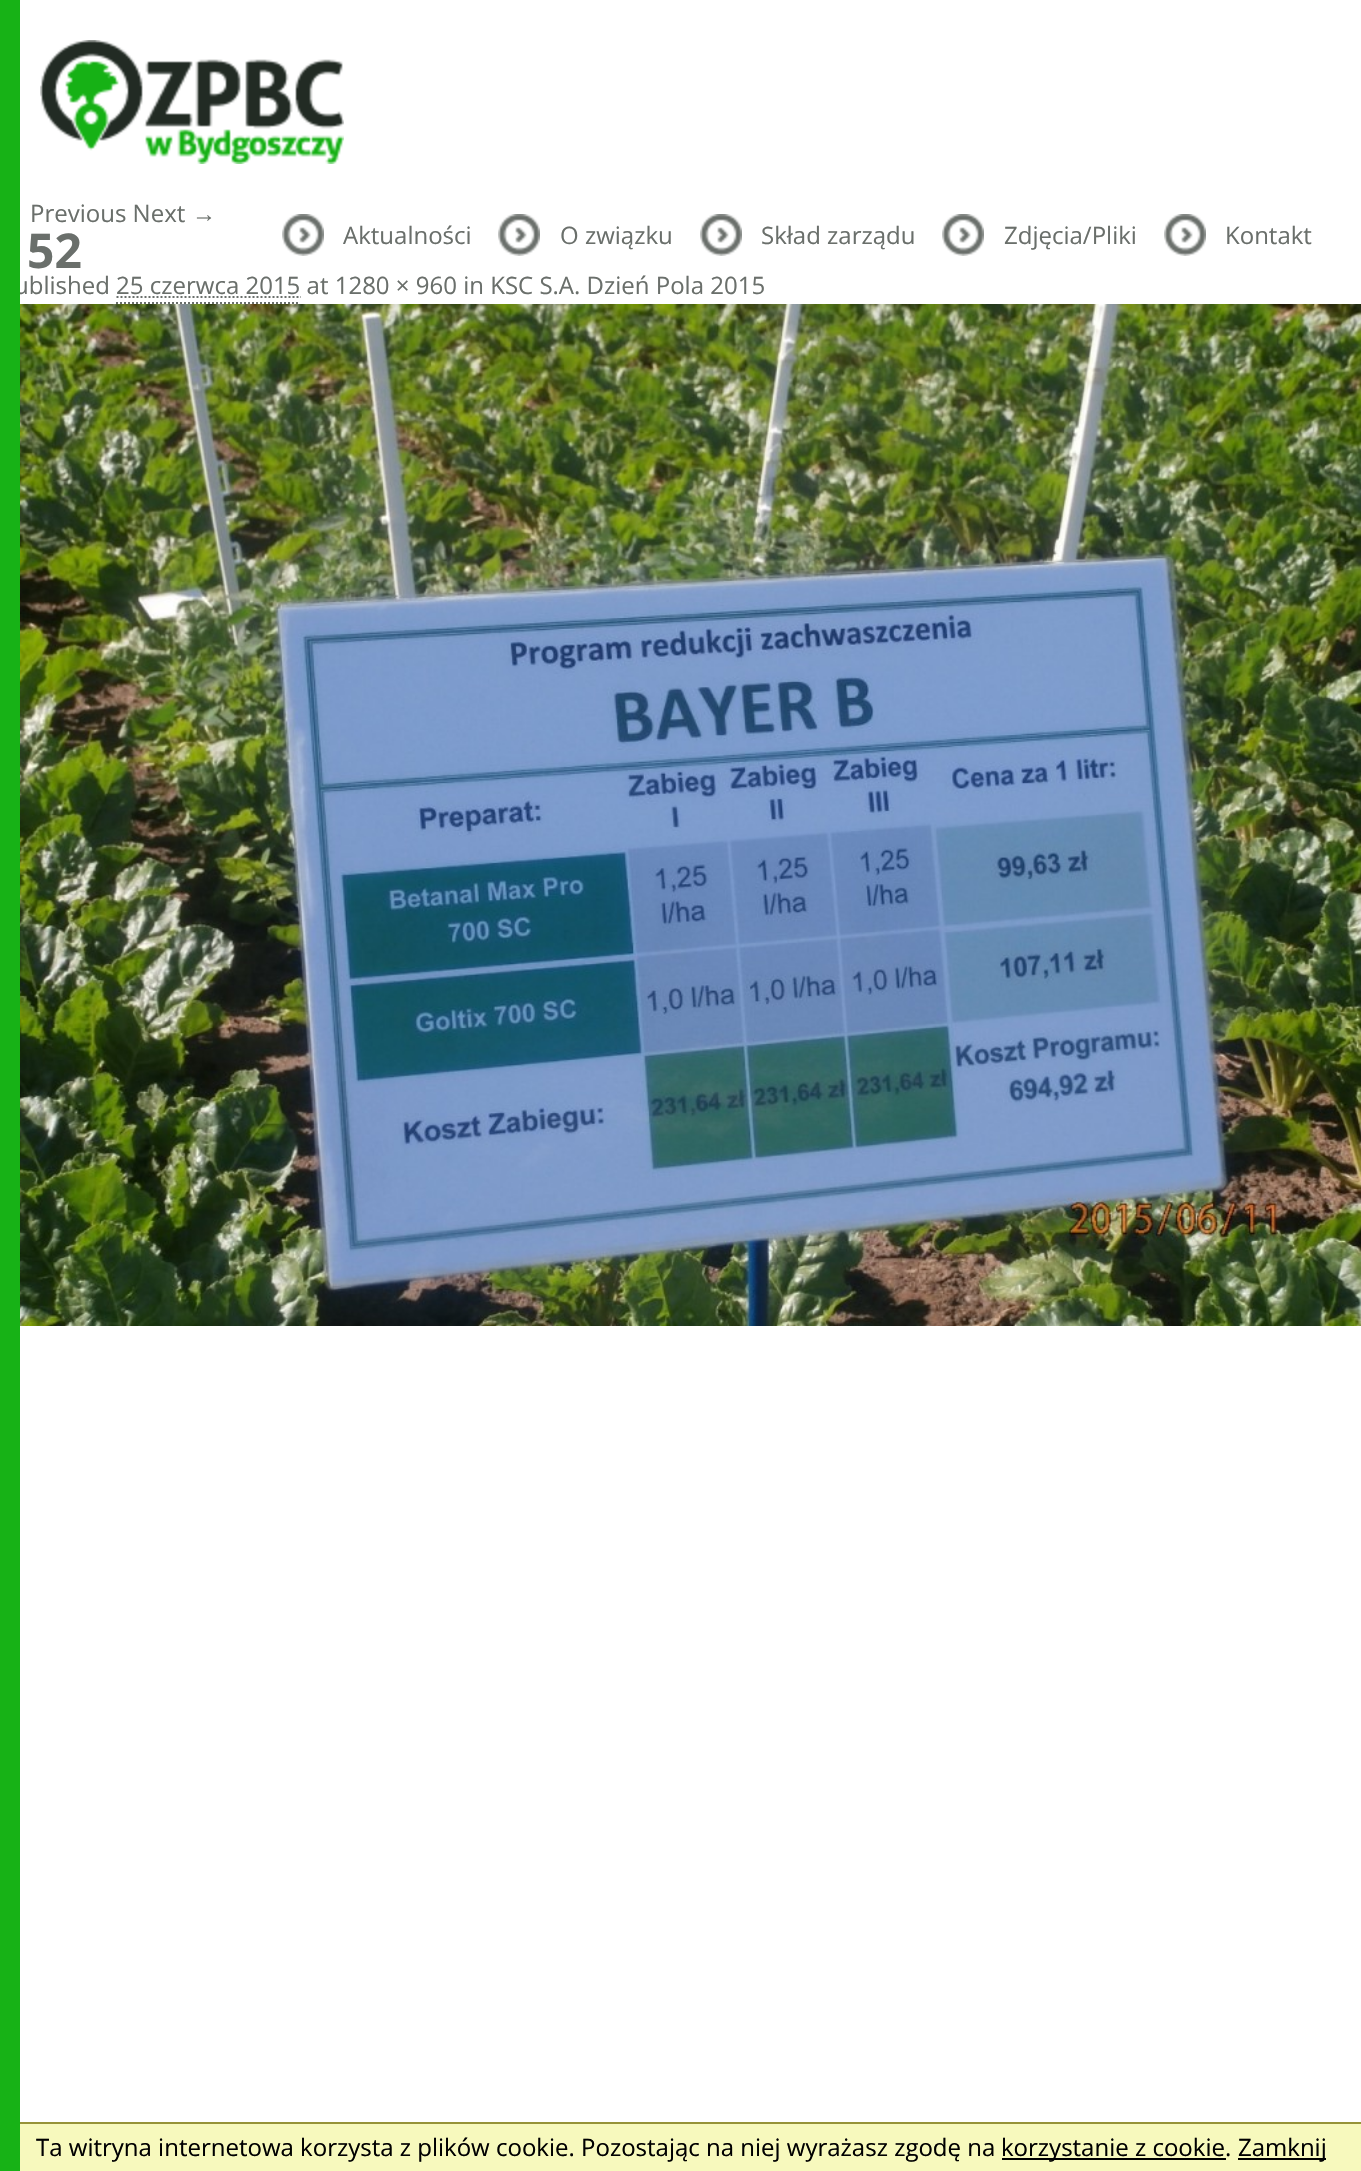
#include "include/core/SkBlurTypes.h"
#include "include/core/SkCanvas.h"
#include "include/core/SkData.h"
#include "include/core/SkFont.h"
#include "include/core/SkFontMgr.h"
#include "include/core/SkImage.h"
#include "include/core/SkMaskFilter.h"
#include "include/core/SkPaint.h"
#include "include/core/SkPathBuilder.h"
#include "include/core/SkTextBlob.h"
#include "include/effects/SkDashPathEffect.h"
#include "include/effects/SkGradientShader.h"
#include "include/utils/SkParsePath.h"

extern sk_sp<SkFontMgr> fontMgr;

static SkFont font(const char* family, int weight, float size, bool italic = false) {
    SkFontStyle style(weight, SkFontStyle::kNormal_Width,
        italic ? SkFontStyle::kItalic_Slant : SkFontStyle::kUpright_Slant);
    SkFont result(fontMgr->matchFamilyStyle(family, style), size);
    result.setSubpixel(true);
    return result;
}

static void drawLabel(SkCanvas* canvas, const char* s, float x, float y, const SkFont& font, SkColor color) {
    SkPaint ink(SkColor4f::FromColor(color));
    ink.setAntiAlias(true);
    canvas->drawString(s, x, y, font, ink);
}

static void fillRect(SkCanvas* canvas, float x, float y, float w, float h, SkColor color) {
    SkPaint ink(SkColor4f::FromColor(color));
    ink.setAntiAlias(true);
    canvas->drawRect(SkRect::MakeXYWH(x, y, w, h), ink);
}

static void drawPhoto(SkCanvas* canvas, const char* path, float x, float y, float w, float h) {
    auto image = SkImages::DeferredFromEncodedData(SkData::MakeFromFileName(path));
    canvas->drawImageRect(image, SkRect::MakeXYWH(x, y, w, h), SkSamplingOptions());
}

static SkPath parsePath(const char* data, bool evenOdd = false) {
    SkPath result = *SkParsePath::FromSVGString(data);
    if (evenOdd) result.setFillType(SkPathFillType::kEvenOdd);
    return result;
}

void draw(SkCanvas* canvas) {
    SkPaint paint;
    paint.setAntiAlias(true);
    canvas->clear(0xFFFFFFFF);
    SkFont font1 = font("Open Sans", 400, 24);
    drawLabel(canvas, "ublished 25 czerwca 2015 at 1280 × 960 in KSC S.A. Dzień Pola 2015", 14, 294, font1, 0xFF6A6F6B);
    fillRect(canvas, 0, 0, 20, 2171, 0xFF17B216);
    drawLabel(canvas, "Previous Next", 30, 222, font1, 0xFF6A6F6B);
    SkFont font2 = font("Liberation Sans", 400, 24);
    drawLabel(canvas, "→", 192, 222, font2, 0xFF6A6F6B);
    SkFont font3 = font("Open Sans", 700, 48);
    drawLabel(canvas, "52", 27, 268, font3, 0xFF6A6F6B);
    paint.setStroke(true);
    paint.setStrokeWidth(2);
    paint.setColor(0xFF6A6F6B);
    paint.setPathEffect(SkDashPathEffect::Make({{2, 2}}, 0));
    canvas->drawPath(parsePath("M116.5 297H301"), paint);
    paint.setPathEffect(nullptr);
    paint.setPathEffect(SkDashPathEffect::Make({{2, 2}}, 0));
    canvas->drawPath(parsePath("M116 303H300"), paint);
    paint.setPathEffect(nullptr);
    drawPhoto(canvas, "assets/img1.png", 20, 304, 1341, 1022);
    drawPhoto(canvas, "assets/img2.png", 40, 40, 304, 124);
    drawPhoto(canvas, "assets/img3.png", 282, 214, 42, 42);
    drawLabel(canvas, "Aktualności", 343, 244, font1, 0xFF6A6F6B);
    drawPhoto(canvas, "assets/img3.png", 498, 214, 42, 42);
    drawLabel(canvas, "O związku", 560, 244, font1, 0xFF6A6F6B);
    drawPhoto(canvas, "assets/img3.png", 700, 214, 42, 42);
    drawLabel(canvas, "Skład zarządu", 761, 244, font1, 0xFF6A6F6B);
    drawPhoto(canvas, "assets/img3.png", 942, 214, 42, 42);
    drawLabel(canvas, "Zdjęcia/Pliki", 1004, 244, font1, 0xFF6A6F6B);
    drawPhoto(canvas, "assets/img3.png", 1164, 214, 42, 42);
    drawLabel(canvas, "Kontakt", 1225, 244, font1, 0xFF6A6F6B);
    fillRect(canvas, 20, 2124, 1341, 47, 0xFFF7F9BD);
    fillRect(canvas, 20, 2122, 1341, 2, 0xFF969339);
    drawLabel(canvas, "Ta witryna internetowa korzysta z plików cookie. Pozostając na niej wyrażasz zgodę na", 36, 2156, font1, 0xFF000000);
    fillRect(canvas, 1002, 2158, 224, 2, 0xFF000000);
    drawLabel(canvas, "korzystanie z cookie.", 1001, 2156, font1, 0xFF000000);
    fillRect(canvas, 1238, 2158, 88, 2, 0xFF000000);
    drawLabel(canvas, "Zamknij", 1238, 2156, font1, 0xFF000000);
}
